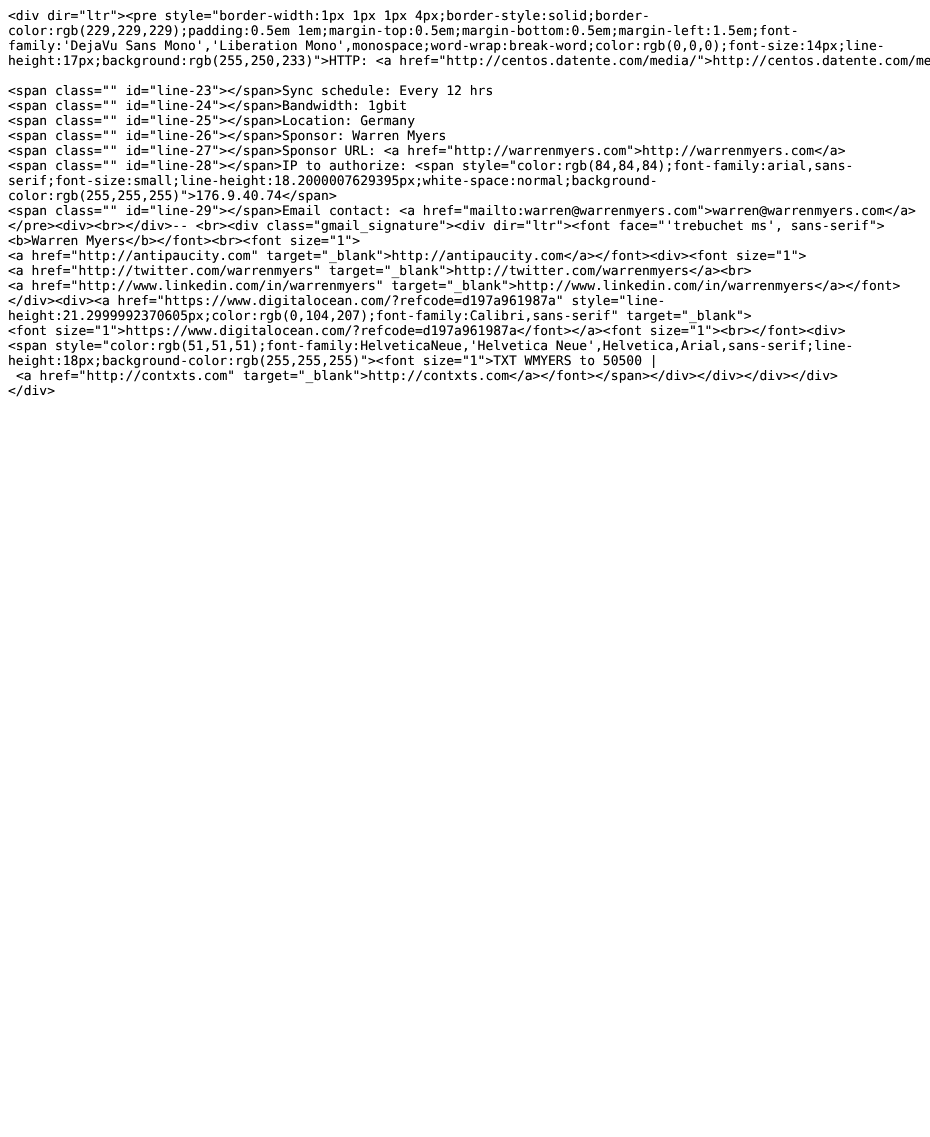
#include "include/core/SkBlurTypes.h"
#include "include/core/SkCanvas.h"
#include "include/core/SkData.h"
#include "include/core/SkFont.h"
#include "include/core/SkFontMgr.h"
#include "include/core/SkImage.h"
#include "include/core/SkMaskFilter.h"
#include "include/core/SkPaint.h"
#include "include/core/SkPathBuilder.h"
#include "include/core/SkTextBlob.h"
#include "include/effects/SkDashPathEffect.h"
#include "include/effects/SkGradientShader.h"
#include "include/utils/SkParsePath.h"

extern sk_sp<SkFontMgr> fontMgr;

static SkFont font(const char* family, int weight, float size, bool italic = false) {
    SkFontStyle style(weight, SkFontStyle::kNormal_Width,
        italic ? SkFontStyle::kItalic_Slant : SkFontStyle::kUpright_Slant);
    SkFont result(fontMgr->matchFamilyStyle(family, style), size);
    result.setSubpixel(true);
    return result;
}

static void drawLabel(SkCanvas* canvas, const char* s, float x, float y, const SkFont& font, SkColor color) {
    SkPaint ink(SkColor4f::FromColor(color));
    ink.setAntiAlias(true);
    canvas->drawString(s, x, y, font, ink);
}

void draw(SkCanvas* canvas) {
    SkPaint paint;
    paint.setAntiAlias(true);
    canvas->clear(0xFFFFFFFF);
    SkFont font1 = font("DejaVu Sans Mono", 400, 13);
    drawLabel(canvas, "<div dir=\"ltr\"><pre style=\"border-width:1px 1px 1px 4px;border-style:solid;border-", 8, 20, font1, 0xFF000000);
    drawLabel(canvas, "color:rgb(229,229,229);padding:0.5em 1em;margin-top:0.5em;margin-bottom:0.5em;margin-left:1.5em;font-", 8, 35, font1, 0xFF000000);
    drawLabel(canvas, "family:'DejaVu Sans Mono','Liberation Mono',monospace;word-wrap:break-word;color:rgb(0,0,0);font-size:14px;line-", 8, 50, font1, 0xFF000000);
    drawLabel(canvas, "height:17px;background:rgb(255,250,233)\">HTTP: <a href=\"http://centos.datente.com/media/\">http://centos.datente.com/me", 8, 65, font1, 0xFF000000);
    drawLabel(canvas, "<span class=\"\" id=\"line-23\"></span>Sync schedule: Every 12 hrs", 8, 95, font1, 0xFF000000);
    drawLabel(canvas, "<span class=\"\" id=\"line-24\"></span>Bandwidth: 1gbit", 8, 110, font1, 0xFF000000);
    drawLabel(canvas, "<span class=\"\" id=\"line-25\"></span>Location: Germany", 8, 125, font1, 0xFF000000);
    drawLabel(canvas, "<span class=\"\" id=\"line-26\"></span>Sponsor: Warren Myers", 8, 140, font1, 0xFF000000);
    drawLabel(canvas, "<span class=\"\" id=\"line-27\"></span>Sponsor URL: <a href=\"http://warrenmyers.com\">http://warrenmyers.com</a>", 8, 155, font1, 0xFF000000);
    drawLabel(canvas, "<span class=\"\" id=\"line-28\"></span>IP to authorize: <span style=\"color:rgb(84,84,84);font-family:arial,sans-", 8, 170, font1, 0xFF000000);
    drawLabel(canvas, "serif;font-size:small;line-height:18.2000007629395px;white-space:normal;background-", 8, 185, font1, 0xFF000000);
    drawLabel(canvas, "color:rgb(255,255,255)\">176.9.40.74</span>", 8, 200, font1, 0xFF000000);
    drawLabel(canvas, "<span class=\"\" id=\"line-29\"></span>Email contact: <a href=\"mailto:warren@warrenmyers.com\">warren@warrenmyers.com</a>", 8, 215, font1, 0xFF000000);
    drawLabel(canvas, "</pre><div><br></div>-- <br><div class=\"gmail_signature\"><div dir=\"ltr\"><font face=\"'trebuchet ms', sans-serif\">", 8, 230, font1, 0xFF000000);
    drawLabel(canvas, "<b>Warren Myers</b></font><br><font size=\"1\">", 8, 245, font1, 0xFF000000);
    drawLabel(canvas, "<a href=\"http://antipaucity.com\" target=\"_blank\">http://antipaucity.com</a></font><div><font size=\"1\">", 8, 260, font1, 0xFF000000);
    drawLabel(canvas, "<a href=\"http://twitter.com/warrenmyers\" target=\"_blank\">http://twitter.com/warrenmyers</a><br>", 8, 275, font1, 0xFF000000);
    drawLabel(canvas, "<a href=\"http://www.linkedin.com/in/warrenmyers\" target=\"_blank\">http://www.linkedin.com/in/warrenmyers</a></font>", 8, 290, font1, 0xFF000000);
    drawLabel(canvas, "</div><div><a href=\"https://www.digitalocean.com/?refcode=d197a961987a\" style=\"line-", 8, 305, font1, 0xFF000000);
    drawLabel(canvas, "height:21.2999992370605px;color:rgb(0,104,207);font-family:Calibri,sans-serif\" target=\"_blank\">", 8, 320, font1, 0xFF000000);
    drawLabel(canvas, "<font size=\"1\">https://www.digitalocean.com/?refcode=d197a961987a</font></a><font size=\"1\"><br></font><div>", 8, 335, font1, 0xFF000000);
    drawLabel(canvas, "<span style=\"color:rgb(51,51,51);font-family:HelveticaNeue,'Helvetica Neue',Helvetica,Arial,sans-serif;line-", 8, 350, font1, 0xFF000000);
    drawLabel(canvas, "height:18px;background-color:rgb(255,255,255)\"><font size=\"1\">TXT WMYERS to 50500 |", 8, 365, font1, 0xFF000000);
    drawLabel(canvas, "<a href=\"http://contxts.com\" target=\"_blank\">http://contxts.com</a></font></span></div></div></div></div>", 16, 380, font1, 0xFF000000);
    drawLabel(canvas, "</div>", 8, 395, font1, 0xFF000000);
}
